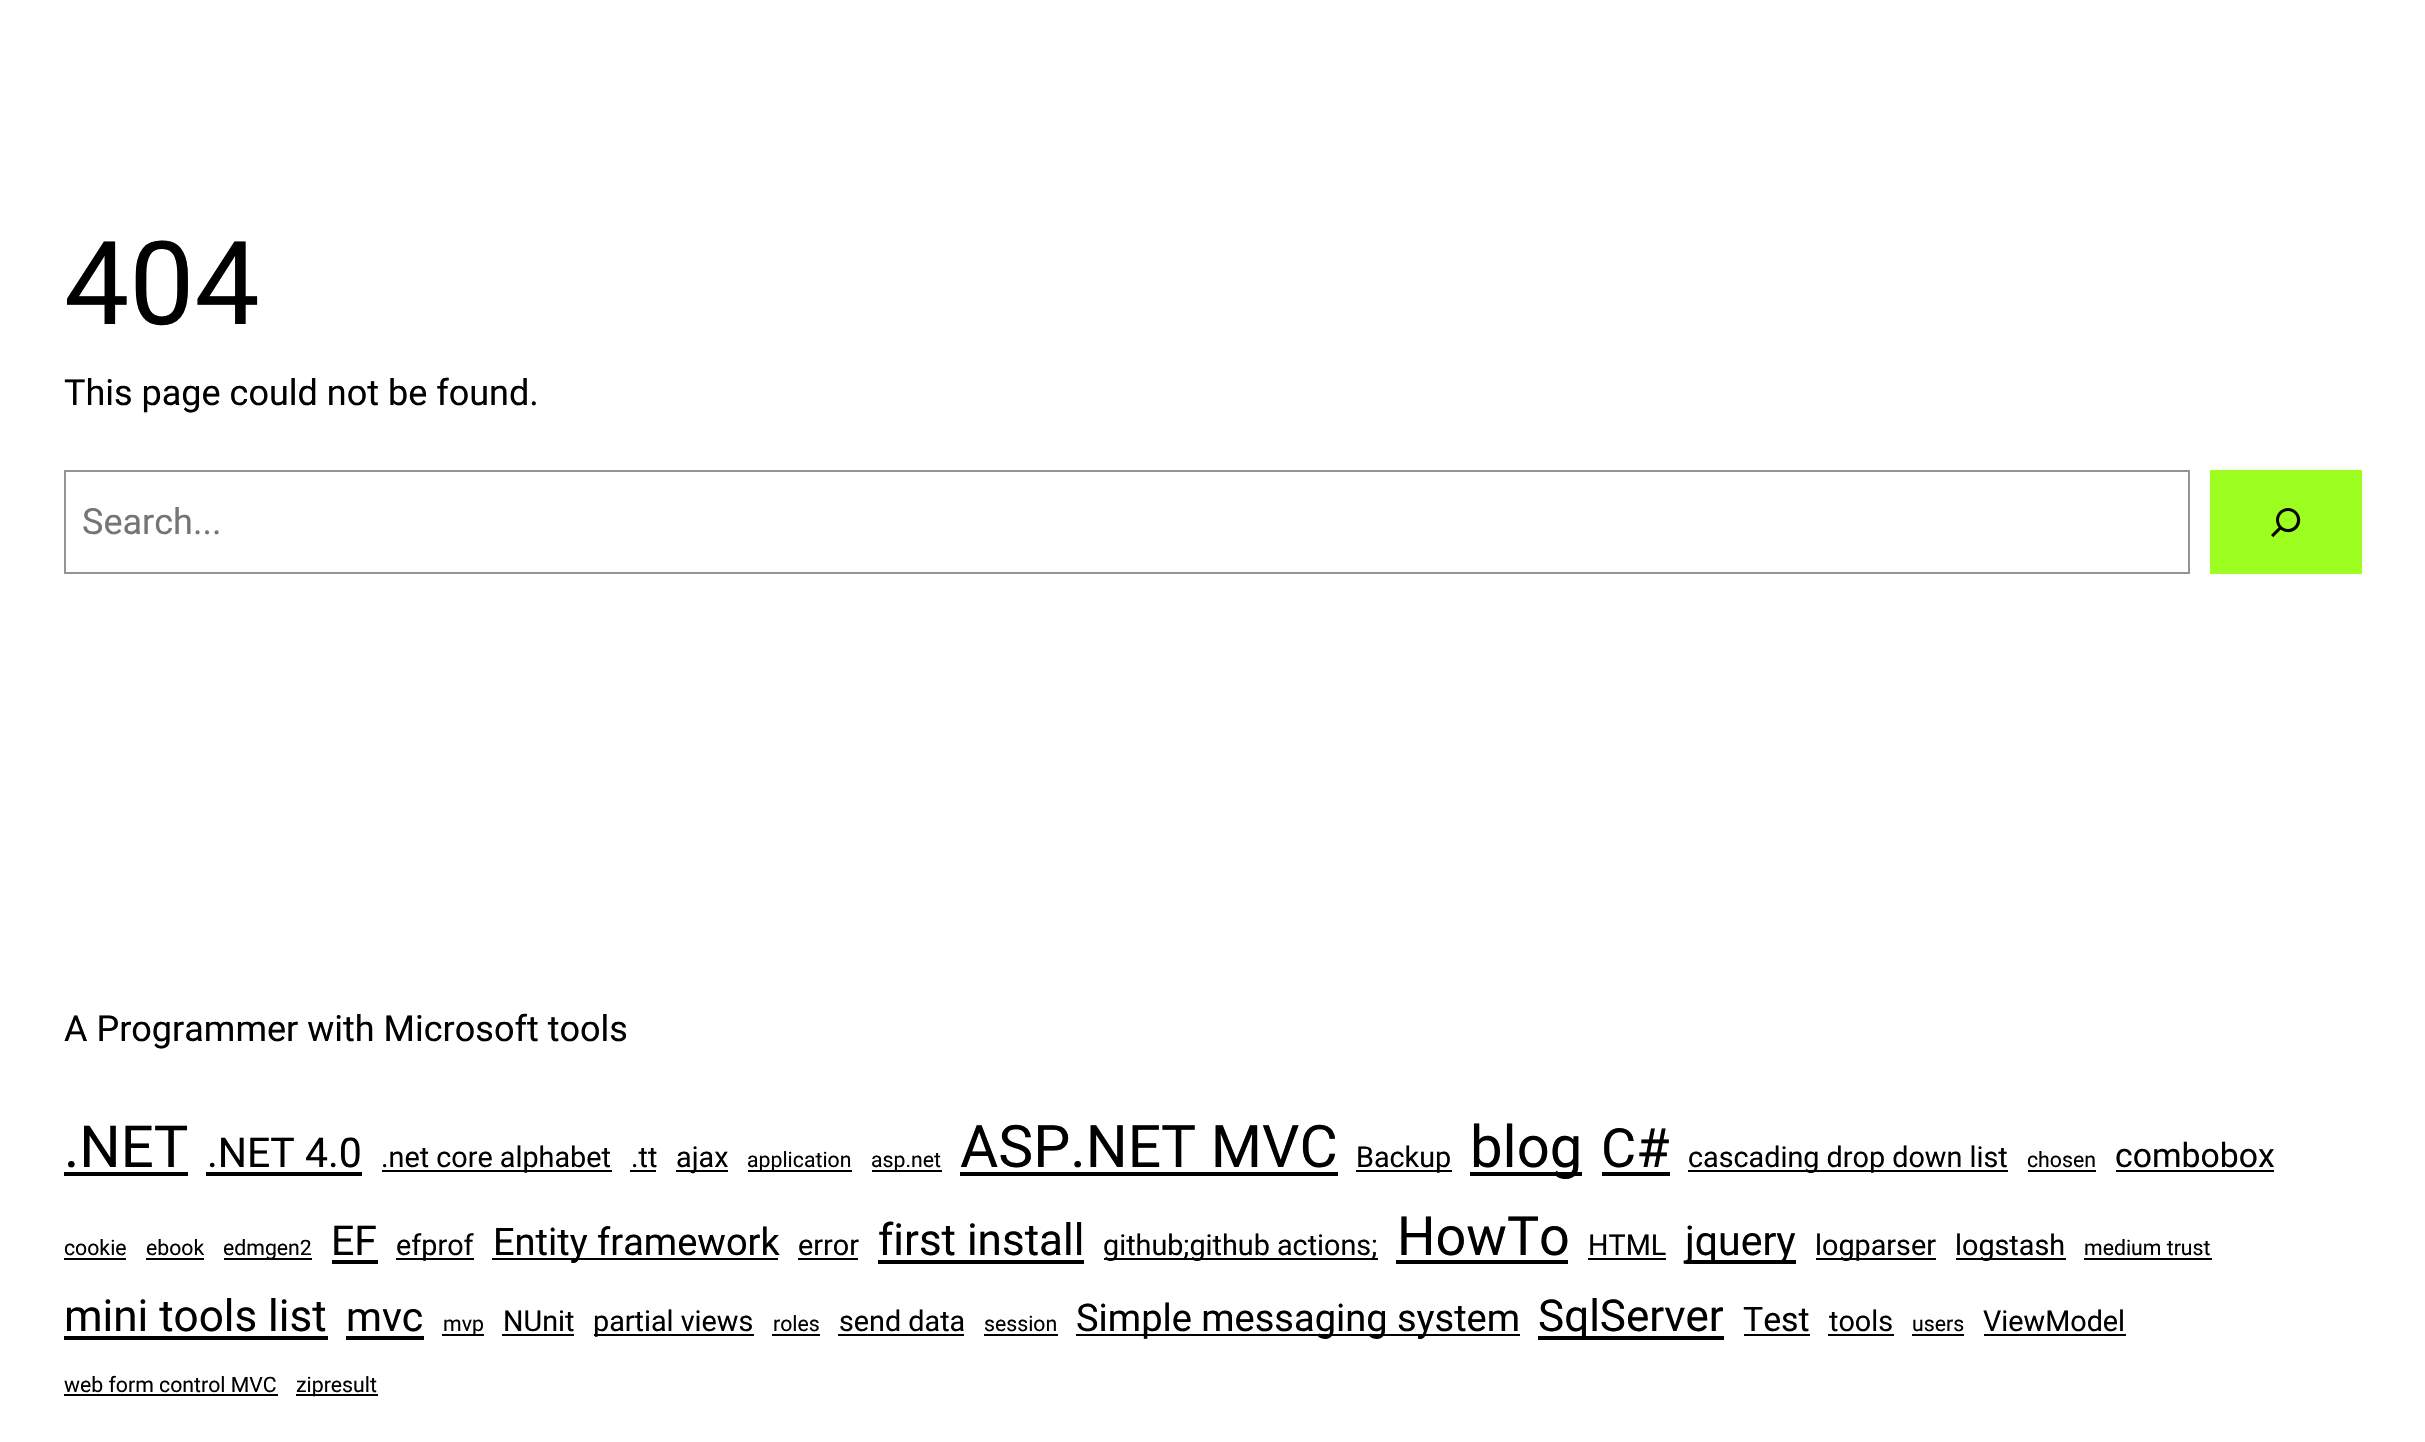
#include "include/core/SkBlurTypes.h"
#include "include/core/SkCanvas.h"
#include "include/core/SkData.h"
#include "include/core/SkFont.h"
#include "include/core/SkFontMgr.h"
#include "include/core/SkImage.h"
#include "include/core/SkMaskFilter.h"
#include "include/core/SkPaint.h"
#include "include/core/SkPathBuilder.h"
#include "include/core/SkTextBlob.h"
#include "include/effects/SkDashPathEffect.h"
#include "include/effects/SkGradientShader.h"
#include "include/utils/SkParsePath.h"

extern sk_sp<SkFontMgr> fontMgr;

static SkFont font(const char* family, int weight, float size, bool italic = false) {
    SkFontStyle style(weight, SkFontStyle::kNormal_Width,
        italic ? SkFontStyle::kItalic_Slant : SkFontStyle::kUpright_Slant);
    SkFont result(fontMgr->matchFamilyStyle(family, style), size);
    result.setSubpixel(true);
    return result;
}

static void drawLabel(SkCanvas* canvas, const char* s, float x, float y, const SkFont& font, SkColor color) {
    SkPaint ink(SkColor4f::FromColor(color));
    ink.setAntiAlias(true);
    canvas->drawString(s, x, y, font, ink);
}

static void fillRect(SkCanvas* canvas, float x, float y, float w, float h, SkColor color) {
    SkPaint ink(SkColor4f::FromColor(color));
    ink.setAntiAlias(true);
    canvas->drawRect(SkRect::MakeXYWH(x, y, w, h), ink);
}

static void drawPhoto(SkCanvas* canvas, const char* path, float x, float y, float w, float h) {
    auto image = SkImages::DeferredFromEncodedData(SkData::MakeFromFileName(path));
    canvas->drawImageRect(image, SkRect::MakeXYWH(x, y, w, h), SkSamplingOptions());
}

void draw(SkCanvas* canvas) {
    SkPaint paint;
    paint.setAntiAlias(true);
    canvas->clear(0xFFFFFFFF);
    SkFont font1 = font("Roboto", 400, 116);
    drawLabel(canvas, "404", 64, 324, font1, 0xFF000000);
    SkFont font2 = font("Roboto", 400, 36);
    drawLabel(canvas, "This page could not be found.", 64, 405, font2, 0xFF000000);
    paint.setStroke(true);
    paint.setStrokeWidth(2);
    paint.setColor(0xFF949494);
    canvas->drawRect(SkRect::MakeXYWH(65, 471, 2124, 102), paint);
    drawLabel(canvas, "Search...", 82, 534, font2, 0xFF757575);
    fillRect(canvas, 2210, 470, 152, 104, 0xFF9DFF20);
    drawPhoto(canvas, "assets/img1.png", 2271, 508, 30, 30);
    drawLabel(canvas, "A Programmer with Microsoft tools", 64, 1041, font2, 0xFF000000);
    SkFont font3 = font("Roboto", 400, 58);
    drawLabel(canvas, ".NET", 64, 1167, font3, 0xFF000000);
    fillRect(canvas, 64, 1172, 124, 4, 0xFF000000);
    SkFont font4 = font("Roboto", 400, 41);
    drawLabel(canvas, ".NET 4.0", 207, 1167, font4, 0xFF000000);
    fillRect(canvas, 206, 1172, 156, 4, 0xFF000000);
    fillRect(canvas, 382, 1170, 230, 2, 0xFF000000);
    SkFont font5 = font("Roboto", 400, 28.75f);
    drawLabel(canvas, ".net core alphabet", 381, 1167, font5, 0xFF000000);
    drawLabel(canvas, ".tt", 631, 1167, font5, 0xFF000000);
    fillRect(canvas, 630, 1170, 26, 2, 0xFF000000);
    fillRect(canvas, 676, 1170, 52, 2, 0xFF000000);
    drawLabel(canvas, "ajax", 676, 1167, font5, 0xFF000000);
    fillRect(canvas, 748, 1170, 104, 2, 0xFF000000);
    SkFont font6 = font("Roboto", 400, 21.25f);
    drawLabel(canvas, "application", 747, 1167, font6, 0xFF000000);
    fillRect(canvas, 872, 1170, 70, 2, 0xFF000000);
    drawLabel(canvas, "asp.net", 871, 1167, font6, 0xFF000000);
    SkFont font7 = font("Roboto", 400, 58.75f);
    drawLabel(canvas, "ASP.NET MVC", 960, 1167, font7, 0xFF000000);
    fillRect(canvas, 960, 1172, 378, 4, 0xFF000000);
    fillRect(canvas, 1356, 1170, 96, 2, 0xFF000000);
    drawLabel(canvas, "Backup", 1356, 1167, font5, 0xFF000000);
    fillRect(canvas, 1470, 1172, 112, 4, 0xFF000000);
    drawLabel(canvas, "blog", 1470, 1167, font3, 0xFF000000);
    SkFont font8 = font("Roboto", 400, 54);
    drawLabel(canvas, "C#", 1601, 1167, font8, 0xFF000000);
    fillRect(canvas, 1602, 1172, 68, 4, 0xFF000000);
    fillRect(canvas, 1688, 1170, 320, 2, 0xFF000000);
    drawLabel(canvas, "cascading drop down list", 1688, 1167, font5, 0xFF000000);
    drawLabel(canvas, "chosen", 2027, 1167, font6, 0xFF000000);
    fillRect(canvas, 2028, 1170, 68, 2, 0xFF000000);
    SkFont font9 = font("Roboto", 400, 33.75f);
    drawLabel(canvas, "combobox", 2115, 1167, font9, 0xFF000000);
    fillRect(canvas, 2116, 1170, 158, 2, 0xFF000000);
    drawLabel(canvas, "cookie", 64, 1255, font6, 0xFF000000);
    fillRect(canvas, 64, 1258, 62, 2, 0xFF000000);
    drawLabel(canvas, "ebook", 146, 1255, font6, 0xFF000000);
    fillRect(canvas, 146, 1258, 58, 2, 0xFF000000);
    fillRect(canvas, 224, 1258, 88, 2, 0xFF000000);
    drawLabel(canvas, "edmgen2", 223, 1255, font6, 0xFF000000);
    drawLabel(canvas, "EF", 331, 1255, font4, 0xFF000000);
    fillRect(canvas, 332, 1260, 46, 4, 0xFF000000);
    fillRect(canvas, 396, 1258, 78, 2, 0xFF000000);
    drawLabel(canvas, "efprof", 396, 1255, font5, 0xFF000000);
    fillRect(canvas, 492, 1258, 286, 2, 0xFF000000);
    SkFont font10 = font("Roboto", 400, 38);
    drawLabel(canvas, "Entity framework", 493, 1255, font10, 0xFF000000);
    drawLabel(canvas, "error", 798, 1255, font5, 0xFF000000);
    fillRect(canvas, 798, 1258, 60, 2, 0xFF000000);
    SkFont font11 = font("Roboto", 400, 44);
    drawLabel(canvas, "first install", 878, 1255, font11, 0xFF000000);
    fillRect(canvas, 878, 1260, 206, 4, 0xFF000000);
    fillRect(canvas, 1104, 1258, 274, 2, 0xFF000000);
    drawLabel(canvas, "github;github actions;", 1103, 1255, font5, 0xFF000000);
    drawLabel(canvas, "HowTo", 1397, 1255, font8, 0xFF000000);
    fillRect(canvas, 1396, 1260, 172, 4, 0xFF000000);
    drawLabel(canvas, "HTML", 1588, 1255, font5, 0xFF000000);
    fillRect(canvas, 1588, 1258, 78, 2, 0xFF000000);
    fillRect(canvas, 1686, 1260, 110, 4, 0xFF000000);
    drawLabel(canvas, "jquery", 1685, 1255, font4, 0xFF000000);
    fillRect(canvas, 1816, 1258, 120, 2, 0xFF000000);
    drawLabel(canvas, "logparser", 1815, 1255, font5, 0xFF000000);
    fillRect(canvas, 1956, 1258, 110, 2, 0xFF000000);
    drawLabel(canvas, "logstash", 1955, 1255, font5, 0xFF000000);
    drawLabel(canvas, "medium trust", 2084, 1255, font6, 0xFF000000);
    fillRect(canvas, 2084, 1258, 128, 2, 0xFF000000);
    drawLabel(canvas, "mini tools list", 64, 1331, font11, 0xFF000000);
    fillRect(canvas, 64, 1336, 264, 4, 0xFF000000);
    drawLabel(canvas, "mvc", 346, 1331, font4, 0xFF000000);
    fillRect(canvas, 346, 1336, 78, 4, 0xFF000000);
    fillRect(canvas, 442, 1334, 42, 2, 0xFF000000);
    drawLabel(canvas, "mvp", 443, 1331, font6, 0xFF000000);
    drawLabel(canvas, "NUnit", 503, 1331, font5, 0xFF000000);
    fillRect(canvas, 502, 1334, 72, 2, 0xFF000000);
    fillRect(canvas, 594, 1334, 160, 2, 0xFF000000);
    drawLabel(canvas, "partial views", 593, 1331, font5, 0xFF000000);
    drawLabel(canvas, "roles", 773, 1331, font6, 0xFF000000);
    fillRect(canvas, 772, 1334, 48, 2, 0xFF000000);
    drawLabel(canvas, "send data", 839, 1331, font5, 0xFF000000);
    fillRect(canvas, 838, 1334, 126, 2, 0xFF000000);
    drawLabel(canvas, "session", 984, 1331, font6, 0xFF000000);
    fillRect(canvas, 984, 1334, 74, 2, 0xFF000000);
    fillRect(canvas, 1076, 1334, 444, 2, 0xFF000000);
    drawLabel(canvas, "Simple messaging system", 1076, 1331, font10, 0xFF000000);
    fillRect(canvas, 1538, 1336, 186, 4, 0xFF000000);
    drawLabel(canvas, "SqlServer", 1538, 1331, font11, 0xFF000000);
    drawLabel(canvas, "Test", 1743, 1331, font9, 0xFF000000);
    fillRect(canvas, 1744, 1334, 66, 2, 0xFF000000);
    drawLabel(canvas, "tools", 1829, 1331, font5, 0xFF000000);
    fillRect(canvas, 1828, 1334, 66, 2, 0xFF000000);
    drawLabel(canvas, "users", 1912, 1331, font6, 0xFF000000);
    fillRect(canvas, 1912, 1334, 52, 2, 0xFF000000);
    drawLabel(canvas, "ViewModel", 1983, 1331, font5, 0xFF000000);
    fillRect(canvas, 1984, 1334, 142, 2, 0xFF000000);
    drawLabel(canvas, "web form control MVC", 64, 1392, font6, 0xFF000000);
    fillRect(canvas, 64, 1394, 214, 2, 0xFF000000);
    fillRect(canvas, 296, 1394, 82, 2, 0xFF000000);
    drawLabel(canvas, "zipresult", 296, 1392, font6, 0xFF000000);
}
